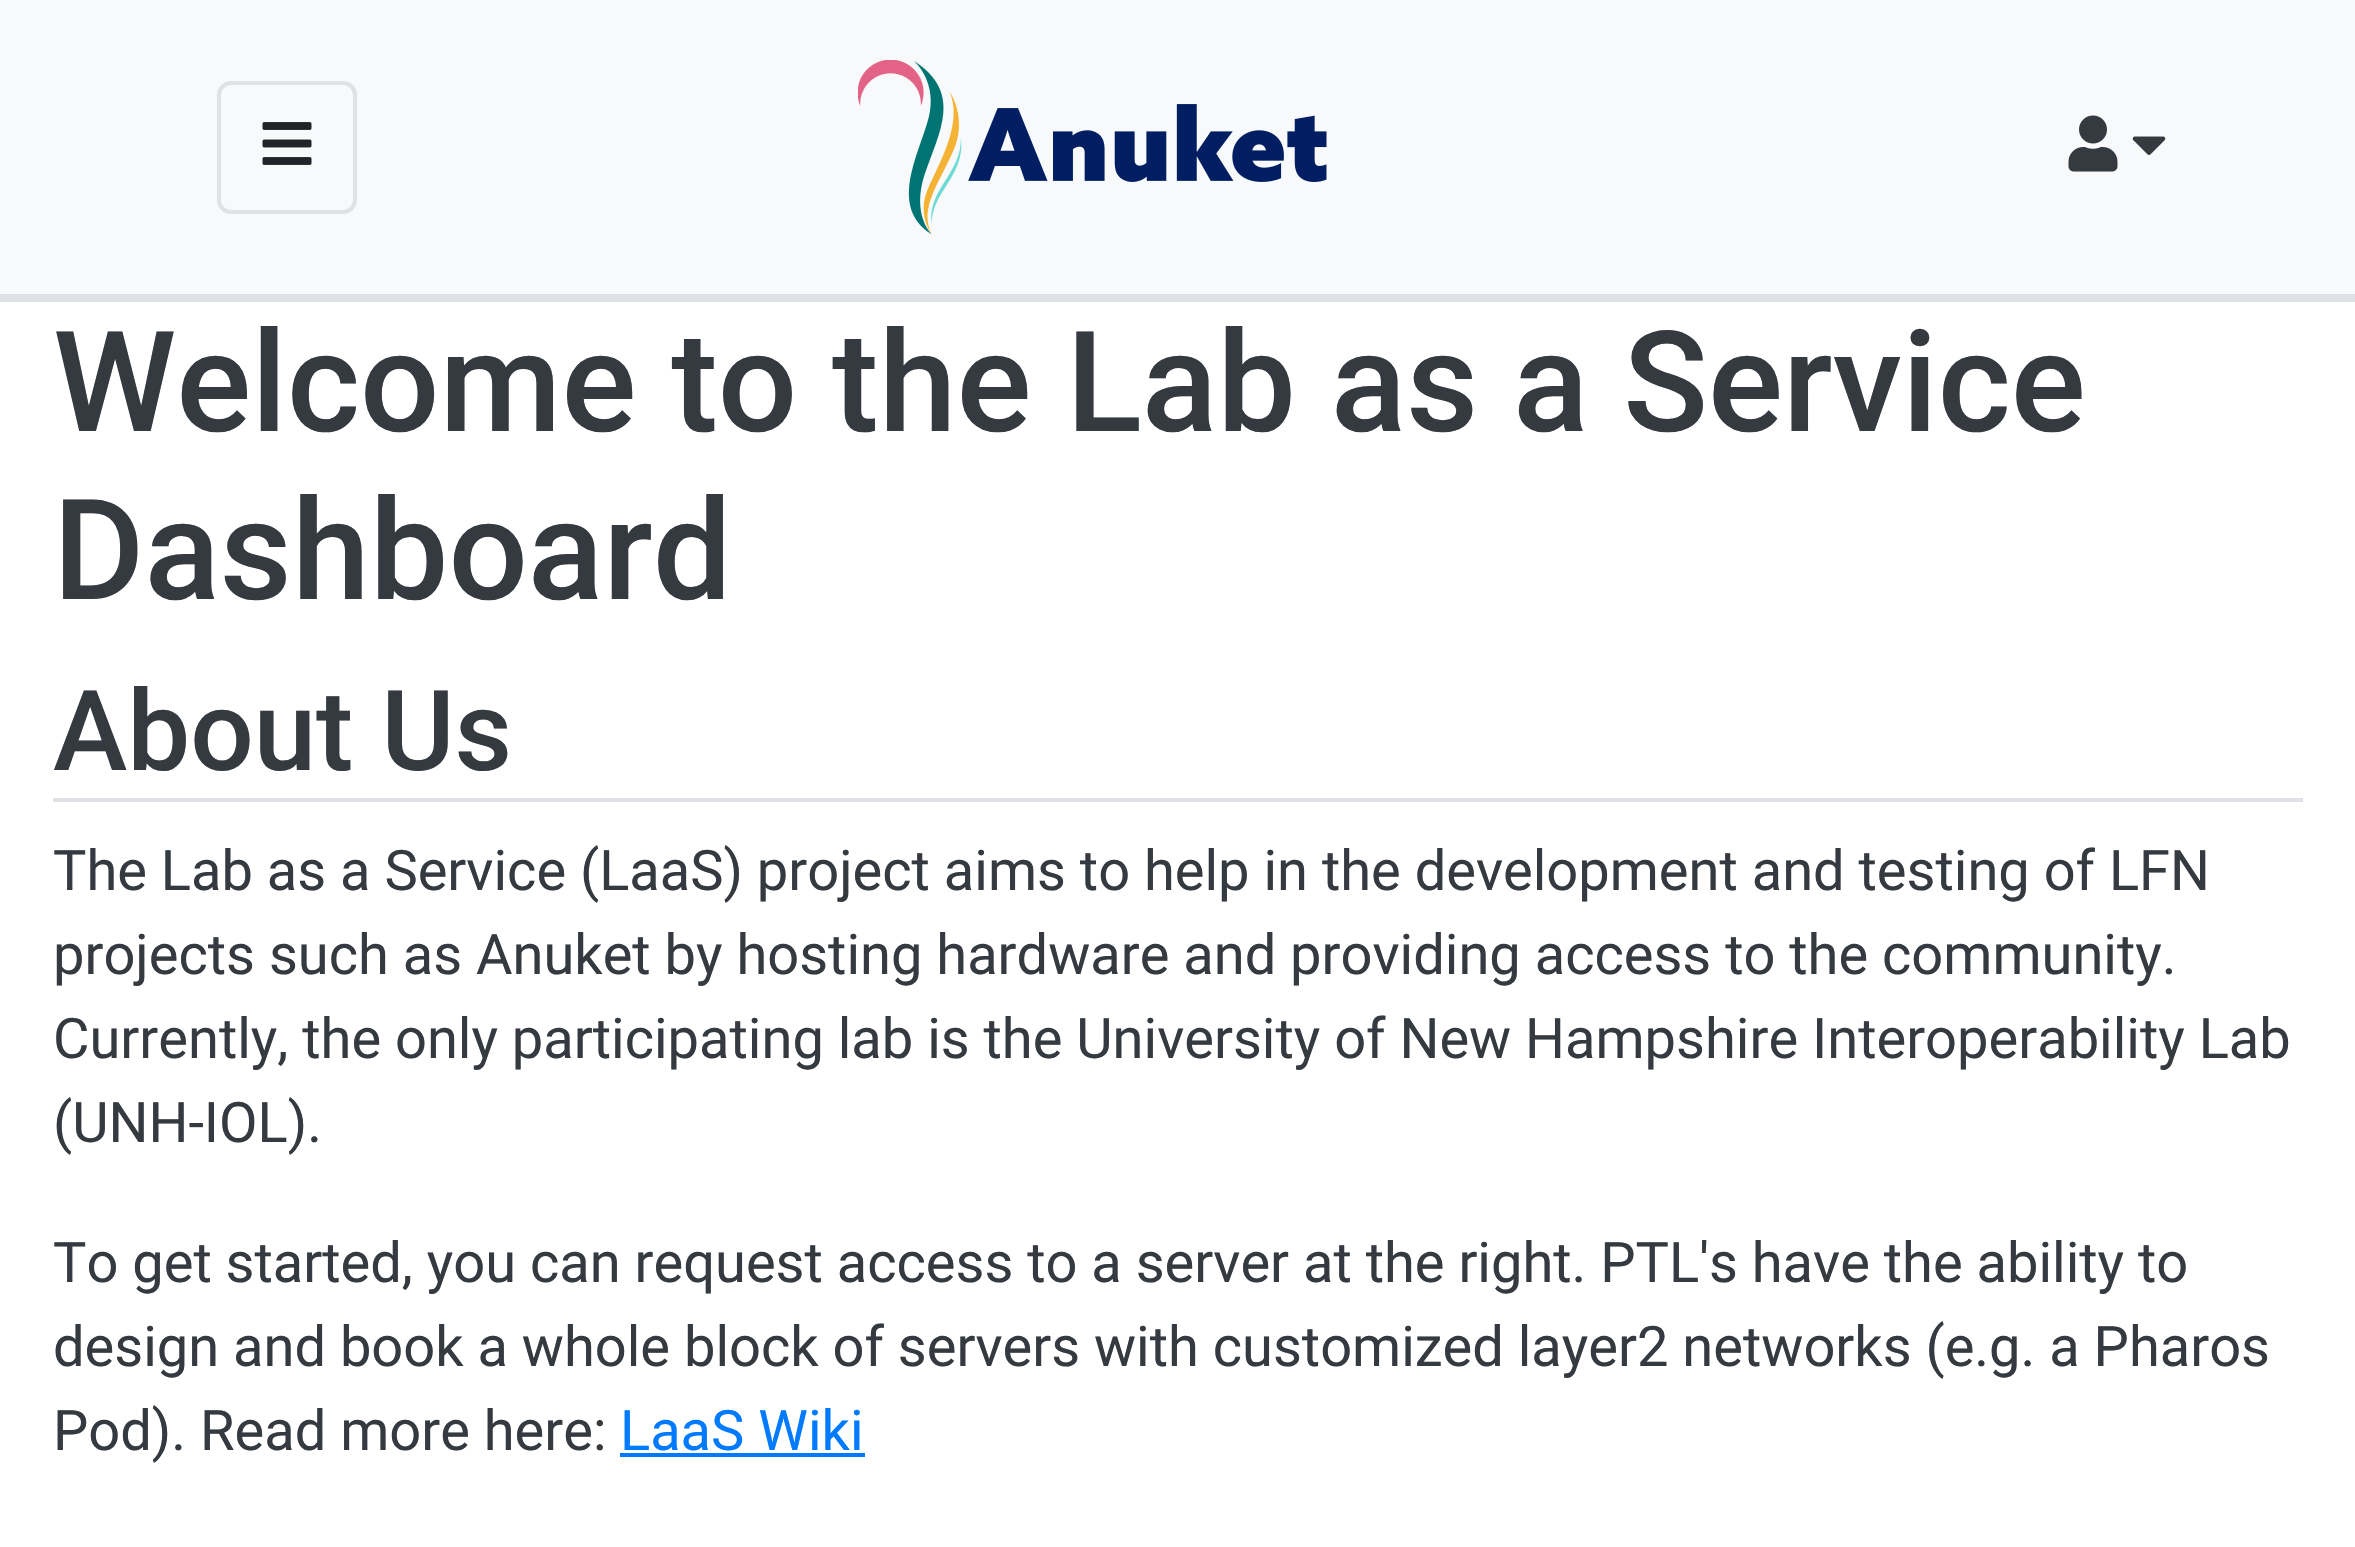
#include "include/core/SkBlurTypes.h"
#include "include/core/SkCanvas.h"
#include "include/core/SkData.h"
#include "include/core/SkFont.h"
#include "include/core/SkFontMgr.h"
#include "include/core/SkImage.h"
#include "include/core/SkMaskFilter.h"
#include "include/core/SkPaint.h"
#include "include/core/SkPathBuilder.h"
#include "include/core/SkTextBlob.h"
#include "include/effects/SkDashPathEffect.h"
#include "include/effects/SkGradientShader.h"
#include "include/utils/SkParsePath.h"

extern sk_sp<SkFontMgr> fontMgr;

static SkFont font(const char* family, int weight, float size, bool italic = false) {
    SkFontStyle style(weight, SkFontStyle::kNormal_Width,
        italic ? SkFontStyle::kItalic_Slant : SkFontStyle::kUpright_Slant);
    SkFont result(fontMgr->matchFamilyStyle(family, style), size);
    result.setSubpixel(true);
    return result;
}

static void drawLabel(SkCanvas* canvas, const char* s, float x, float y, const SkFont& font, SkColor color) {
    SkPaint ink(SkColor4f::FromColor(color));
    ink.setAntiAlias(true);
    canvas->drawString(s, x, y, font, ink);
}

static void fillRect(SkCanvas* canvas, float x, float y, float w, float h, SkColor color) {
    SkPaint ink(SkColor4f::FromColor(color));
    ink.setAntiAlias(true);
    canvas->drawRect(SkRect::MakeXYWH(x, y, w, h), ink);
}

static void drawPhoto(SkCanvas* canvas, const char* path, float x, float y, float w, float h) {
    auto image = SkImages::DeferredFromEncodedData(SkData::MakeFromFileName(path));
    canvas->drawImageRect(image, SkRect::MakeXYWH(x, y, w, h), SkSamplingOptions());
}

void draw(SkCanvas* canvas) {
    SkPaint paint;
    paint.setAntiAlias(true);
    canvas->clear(0xFFFFFFFF);
    fillRect(canvas, 0, 0, 2355, 294, 0xFFF8F9FA);
    fillRect(canvas, 0, 294, 2355, 4, 0xFFDEE2E6);
    paint.setStroke(true);
    paint.setStrokeWidth(4);
    paint.setColor(0xFFDEE2E6);
    canvas->drawRoundRect(SkRect::MakeXYWH(219, 83, 136, 129), 12, 12, paint);
    drawPhoto(canvas, "assets/img1.png", 262, 122, 50, 43);
    drawPhoto(canvas, "assets/img2.png", 858, 60, 469, 175);
    drawPhoto(canvas, "assets/img3.png", 2068, 115, 50, 57);
    drawPhoto(canvas, "assets/img4.png", 2132, 136, 34, 19);
    fillRect(canvas, 2352, 298, 3, 4, 0xFFDEE2E6);
    fillRect(canvas, 0, 298, 2352, 4, 0xFFDEE2E6);
    SkFont font1 = font("Roboto", 500, 140);
    drawLabel(canvas, "Welcome to the Lab as a Service", 53, 431, font1, 0xFF343A40);
    drawLabel(canvas, "Dashboard", 53, 599, font1, 0xFF343A40);
    fillRect(canvas, 53, 798, 2250, 4, 0xFFDEE2E6);
    SkFont font2 = font("Roboto", 500, 112);
    drawLabel(canvas, "About Us", 53, 770, font2, 0xFF343A40);
    SkFont font3 = font("Roboto", 400, 56);
    drawLabel(canvas, "The Lab as a Service (LaaS) project aims to help in the development and testing of LFN", 53, 890, font3, 0xFF343A40);
    drawLabel(canvas, "projects such as Anuket by hosting hardware and providing access to the community.", 53, 974, font3, 0xFF343A40);
    drawLabel(canvas, "Currently, the only participating lab is the University of New Hampshire Interoperability Lab", 53, 1058, font3, 0xFF343A40);
    drawLabel(canvas, "(UNH-IOL).", 53, 1142, font3, 0xFF343A40);
    drawLabel(canvas, "To get started, you can request access to a server at the right. PTL's have the ability to", 53, 1282, font3, 0xFF343A40);
    drawLabel(canvas, "design and book a whole block of servers with customized layer2 networks (e.g. a Pharos", 53, 1366, font3, 0xFF343A40);
    drawLabel(canvas, "Pod). Read more here:", 53, 1450, font3, 0xFF343A40);
    drawLabel(canvas, "LaaS Wiki", 620, 1450, font3, 0xFF007BFF);
    fillRect(canvas, 620, 1453, 245, 4, 0xFF007BFF);
}
